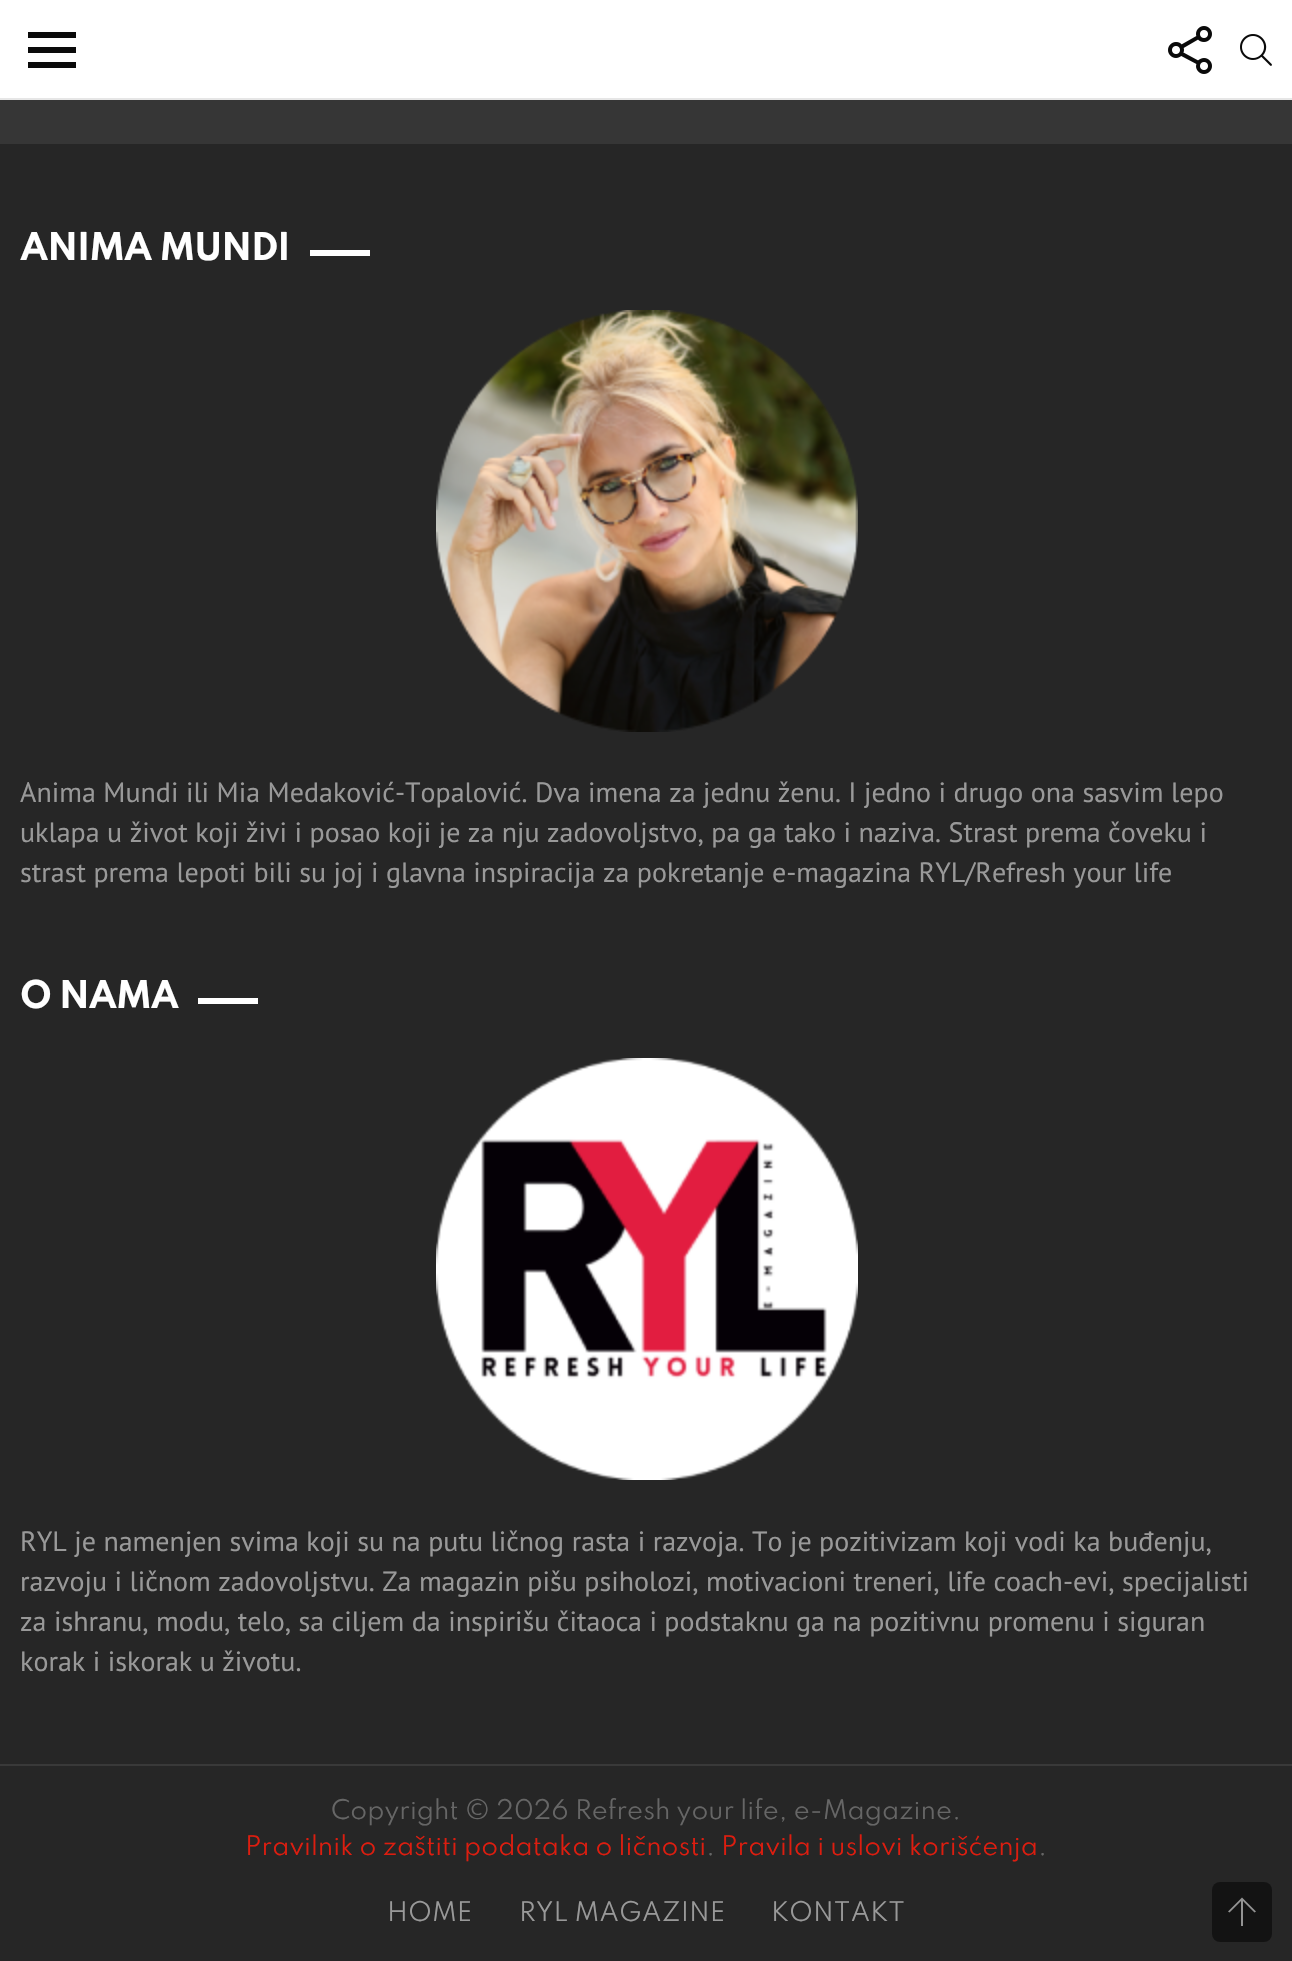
#include "include/core/SkBlurTypes.h"
#include "include/core/SkCanvas.h"
#include "include/core/SkData.h"
#include "include/core/SkFont.h"
#include "include/core/SkFontMgr.h"
#include "include/core/SkImage.h"
#include "include/core/SkMaskFilter.h"
#include "include/core/SkPaint.h"
#include "include/core/SkPathBuilder.h"
#include "include/core/SkTextBlob.h"
#include "include/effects/SkDashPathEffect.h"
#include "include/effects/SkGradientShader.h"
#include "include/utils/SkParsePath.h"

extern sk_sp<SkFontMgr> fontMgr;

static SkFont font(const char* family, int weight, float size, bool italic = false) {
    SkFontStyle style(weight, SkFontStyle::kNormal_Width,
        italic ? SkFontStyle::kItalic_Slant : SkFontStyle::kUpright_Slant);
    SkFont result(fontMgr->matchFamilyStyle(family, style), size);
    result.setSubpixel(true);
    return result;
}

static void drawLabel(SkCanvas* canvas, const char* s, float x, float y, const SkFont& font, SkColor color) {
    SkPaint ink(SkColor4f::FromColor(color));
    ink.setAntiAlias(true);
    canvas->drawString(s, x, y, font, ink);
}

static void drawTracked(SkCanvas* canvas, const char* s, float x, float y, const SkFont& font, const SkPaint& ink, float letter, float word) {
    std::vector<SkGlyphID> glyphs(font.countText(s, strlen(s), SkTextEncoding::kUTF8));
    std::vector<float> xs(glyphs.size());
    font.textToGlyphs(s, strlen(s), SkTextEncoding::kUTF8, glyphs);
    font.getXPos(glyphs, xs, x);
    float extra = 0;
    for (size_t i = 0; i < glyphs.size(); i++) {
        xs[i] += extra;
        extra += letter + word * (glyphs[i] == font.unicharToGlyph(' '));
    }
    canvas->drawTextBlob(SkTextBlob::MakeFromPosHGlyphs(glyphs, xs, y, font), 0, 0, ink);
}

static void fillRect(SkCanvas* canvas, float x, float y, float w, float h, SkColor color) {
    SkPaint ink(SkColor4f::FromColor(color));
    ink.setAntiAlias(true);
    canvas->drawRect(SkRect::MakeXYWH(x, y, w, h), ink);
}

static void fillRRect(SkCanvas* canvas, float x, float y, float w, float h, float radius, SkColor color) {
    SkPaint ink(SkColor4f::FromColor(color));
    ink.setAntiAlias(true);
    canvas->drawRoundRect(SkRect::MakeXYWH(x, y, w, h), radius, radius, ink);
}

static void drawPhoto(SkCanvas* canvas, const char* path, float x, float y, float w, float h) {
    auto image = SkImages::DeferredFromEncodedData(SkData::MakeFromFileName(path));
    canvas->drawImageRect(image, SkRect::MakeXYWH(x, y, w, h), SkSamplingOptions());
}

static SkPath parsePath(const char* data, bool evenOdd = false) {
    SkPath result = *SkParsePath::FromSVGString(data);
    if (evenOdd) result.setFillType(SkPathFillType::kEvenOdd);
    return result;
}

void draw(SkCanvas* canvas) {
    SkPaint paint;
    paint.setAntiAlias(true);
    canvas->clear(0xFF363636);
    fillRect(canvas, 0, 0, 1292, 98, 0xFFFFFFFF);
    fillRect(canvas, 0, 98, 1292, 2, 0xFFE6E6E6);
    paint.setColor(0xFF0A0A0A);
    canvas->drawPath(parsePath("M28 32H76V38H28ZM28 47H76V53H28ZM28 62H76V68H28Z"), paint);
    drawPhoto(canvas, "assets/img1.png", 1168, 26, 44, 48);
    drawPhoto(canvas, "assets/img2.png", 1240, 34, 32, 32);
    fillRect(canvas, 0, 144, 1292, 1620, 0xFF262626);
    SkFont font1 = font("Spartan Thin", 700, 34);
    paint.setColor(0xFFFFFFFF);
    drawTracked(canvas, "ANIMA MUNDI", 20, 260, font1, paint, -1, 0);
    fillRect(canvas, 310, 250, 60, 6, 0xFFFFFFFF);
    drawPhoto(canvas, "assets/img3.png", 436, 310, 422, 422);
    SkFont font2 = font("PT Sans", 400, 28);
    drawLabel(canvas, "Anima Mundi ili Mia Medaković-Topalović. Dva imena za jednu ženu. I jedno i drugo ona sasvim lepo", 20, 802, font2, 0xFF999999);
    drawLabel(canvas, "uklapa u život koji živi i posao koji je za nju zadovoljstvo, pa ga tako i naziva. Strast prema čoveku i", 20, 842, font2, 0xFF999999);
    drawLabel(canvas, "strast prema lepoti bili su joj i glavna inspiracija za pokretanje e-magazina RYL/Refresh your life", 20, 882, font2, 0xFF999999);
    drawTracked(canvas, "O NAMA", 20, 1008, font1, paint, -1, 0);
    fillRect(canvas, 198, 998, 60, 6, 0xFFFFFFFF);
    drawPhoto(canvas, "assets/img4.png", 436, 1058, 422, 422);
    drawLabel(canvas, "RYL je namenjen svima koji su na putu ličnog rasta i razvoja. To je pozitivizam koji vodi ka buđenju,", 20, 1551, font2, 0xFF999999);
    drawLabel(canvas, "razvoju i ličnom zadovoljstvu. Za magazin pišu psiholozi, motivacioni treneri, life coach-evi, specijalisti", 20, 1591, font2, 0xFF999999);
    drawLabel(canvas, "za ishranu, modu, telo, sa ciljem da inspirišu čitaoca i podstaknu ga na pozitivnu promenu i siguran", 20, 1631, font2, 0xFF999999);
    drawLabel(canvas, "korak i iskorak u životu.", 20, 1671, font2, 0xFF999999);
    fillRect(canvas, 0, 1764, 1292, 2, 0xFF393939);
    fillRect(canvas, 0, 1766, 1292, 195, 0xFF262626);
    SkFont font3 = font("Spartan Thin", 400, 24);
    drawLabel(canvas, "Copyright © 2026 Refresh your life, e-Magazine.", 331, 1819, font3, 0xFF666666);
    drawLabel(canvas, "Pravilnik o zaštiti podataka o ličnosti", 245, 1855, font3, 0xFFDD1D0F);
    drawLabel(canvas, ".", 706, 1855, font3, 0xFF666666);
    drawLabel(canvas, "Pravila i uslovi korišćenja", 721, 1855, font3, 0xFFDD1D0F);
    drawLabel(canvas, ".", 1038, 1855, font3, 0xFF666666);
    drawLabel(canvas, "HOME", 387, 1921, font3, 0xFF999999);
    drawLabel(canvas, "RYL MAGAZINE", 519, 1921, font3, 0xFF999999);
    drawLabel(canvas, "KONTAKT", 771, 1921, font3, 0xFF999999);
    fillRRect(canvas, 1212, 1882, 60, 60, 8, 0xFF131313);
    paint.setColor(0xFF939393);
    canvas->drawPath(parsePath("M1254.5 1912.5L1243 1901V1926H1241V1901L1229.5 1912.5L1228 1911.5L1242 1897.5L1256 1911.5Z"), paint);
}
